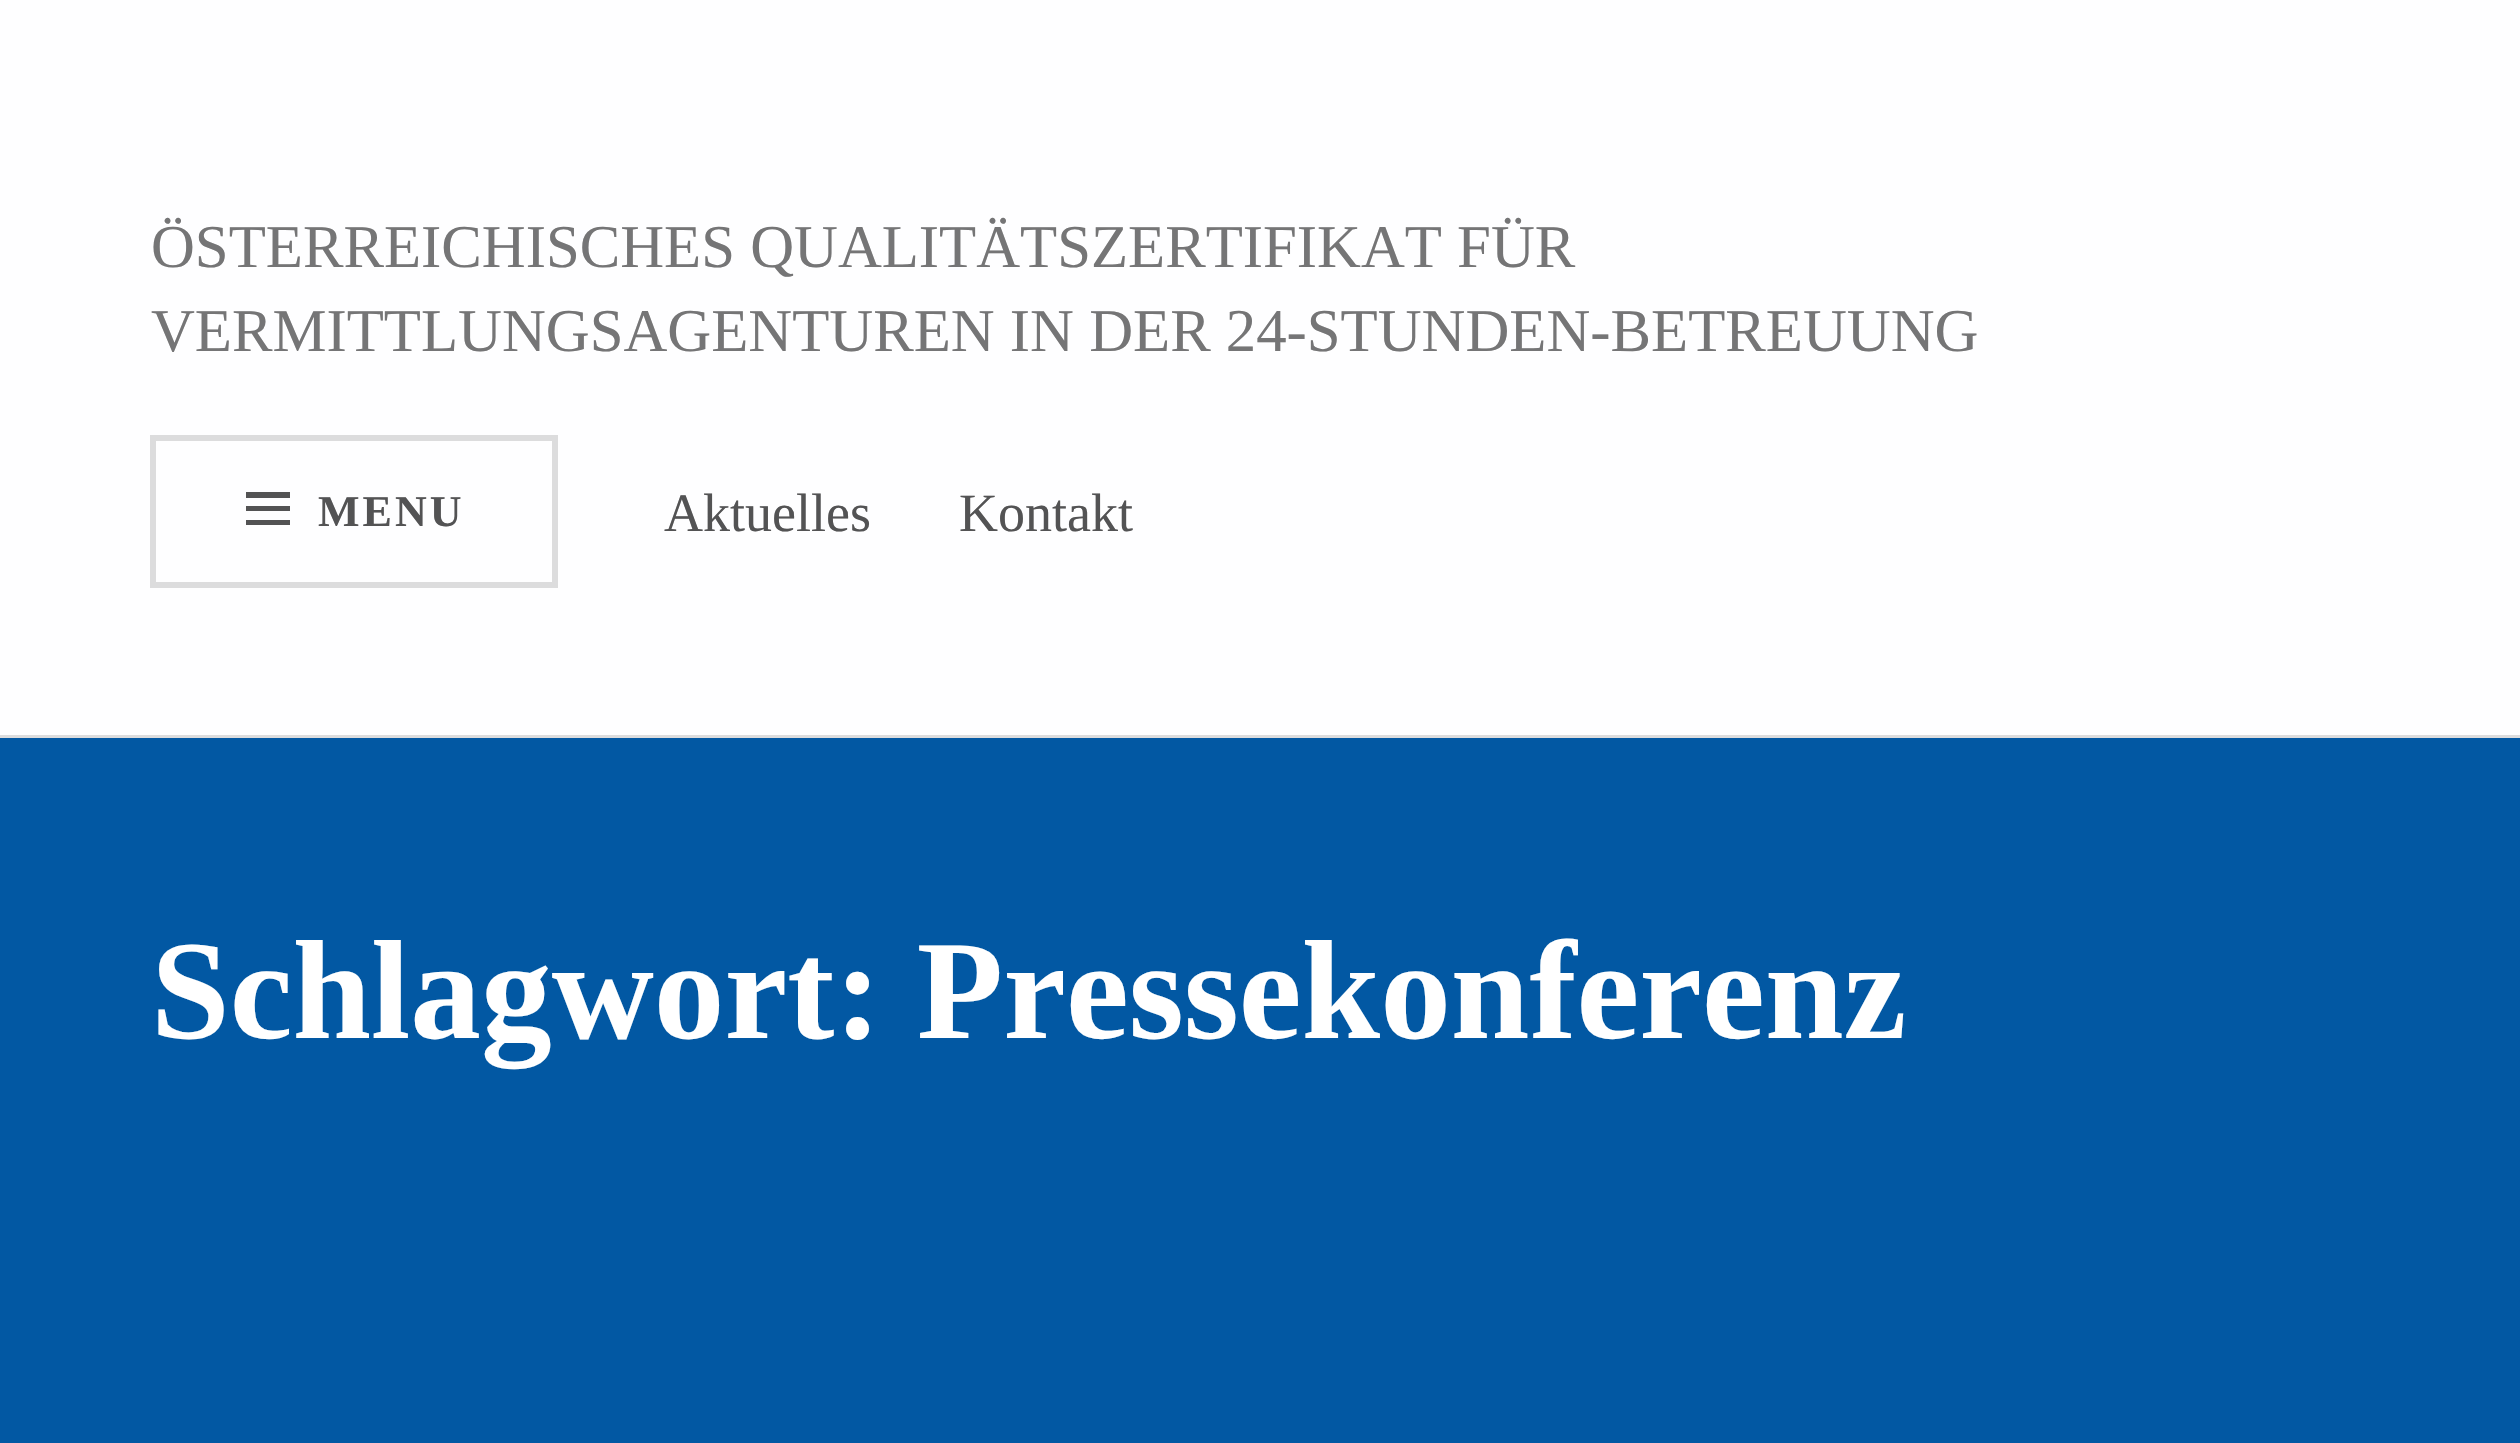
#include "include/core/SkBlurTypes.h"
#include "include/core/SkCanvas.h"
#include "include/core/SkData.h"
#include "include/core/SkFont.h"
#include "include/core/SkFontMgr.h"
#include "include/core/SkImage.h"
#include "include/core/SkMaskFilter.h"
#include "include/core/SkPaint.h"
#include "include/core/SkPathBuilder.h"
#include "include/core/SkTextBlob.h"
#include "include/effects/SkDashPathEffect.h"
#include "include/effects/SkGradientShader.h"
#include "include/utils/SkParsePath.h"

extern sk_sp<SkFontMgr> fontMgr;

static SkFont font(const char* family, int weight, float size, bool italic = false) {
    SkFontStyle style(weight, SkFontStyle::kNormal_Width,
        italic ? SkFontStyle::kItalic_Slant : SkFontStyle::kUpright_Slant);
    SkFont result(fontMgr->matchFamilyStyle(family, style), size);
    result.setSubpixel(true);
    return result;
}

static void drawLabel(SkCanvas* canvas, const char* s, float x, float y, const SkFont& font, SkColor color) {
    SkPaint ink(SkColor4f::FromColor(color));
    ink.setAntiAlias(true);
    canvas->drawString(s, x, y, font, ink);
}

static void drawTracked(SkCanvas* canvas, const char* s, float x, float y, const SkFont& font, const SkPaint& ink, float letter, float word) {
    std::vector<SkGlyphID> glyphs(font.countText(s, strlen(s), SkTextEncoding::kUTF8));
    std::vector<float> xs(glyphs.size());
    font.textToGlyphs(s, strlen(s), SkTextEncoding::kUTF8, glyphs);
    font.getXPos(glyphs, xs, x);
    float extra = 0;
    for (size_t i = 0; i < glyphs.size(); i++) {
        xs[i] += extra;
        extra += letter + word * (glyphs[i] == font.unicharToGlyph(' '));
    }
    canvas->drawTextBlob(SkTextBlob::MakeFromPosHGlyphs(glyphs, xs, y, font), 0, 0, ink);
}

static void fillRect(SkCanvas* canvas, float x, float y, float w, float h, SkColor color) {
    SkPaint ink(SkColor4f::FromColor(color));
    ink.setAntiAlias(true);
    canvas->drawRect(SkRect::MakeXYWH(x, y, w, h), ink);
}

static SkPath parsePath(const char* data, bool evenOdd = false) {
    SkPath result = *SkParsePath::FromSVGString(data);
    if (evenOdd) result.setFillType(SkPathFillType::kEvenOdd);
    return result;
}

void draw(SkCanvas* canvas) {
    SkPaint paint;
    paint.setAntiAlias(true);
    canvas->clear(0xFFFEFEFF);
    fillRect(canvas, 0, 735, 2520, 3, 0xFFDCDCDD);
    SkFont font1 = font("Liberation Serif", 400, 60.75f);
    drawLabel(canvas, "ÖSTERREICHISCHES QUALITÄTSZERTIFIKAT FÜR", 151, 267, font1, 0xFF757576);
    drawLabel(canvas, "VERMITTLUNGSAGENTUREN IN DER 24-STUNDEN-BETREUUNG", 151, 351, font1, 0xFF757576);
    paint.setStroke(true);
    paint.setStrokeWidth(6);
    paint.setColor(0xFFDCDCDD);
    canvas->drawRect(SkRect::MakeXYWH(153, 438, 402, 147), paint);
    paint.setStroke(false);
    paint.setColor(0xFF535354);
    canvas->drawPath(parsePath("M246 525V520H290V525ZM246 492H290V498H246ZM246 511V506H290V511Z"), paint);
    SkFont font2 = font("Liberation Serif", 700, 44);
    drawTracked(canvas, "MENU", 318, 526, font2, paint, 3, 0);
    SkFont font3 = font("Liberation Serif", 400, 54);
    drawLabel(canvas, "Aktuelles", 664, 531, font3, 0xFF535354);
    drawLabel(canvas, "Kontakt", 959, 531, font3, 0xFF535354);
    fillRect(canvas, 0, 738, 2520, 705, 0xFF0258A3);
    SkFont font4 = font("Liberation Serif", 700, 141.4f);
    drawLabel(canvas, "Schlagwort: Pressekonferenz", 151, 1038, font4, 0xFFFFFFFF);
}
